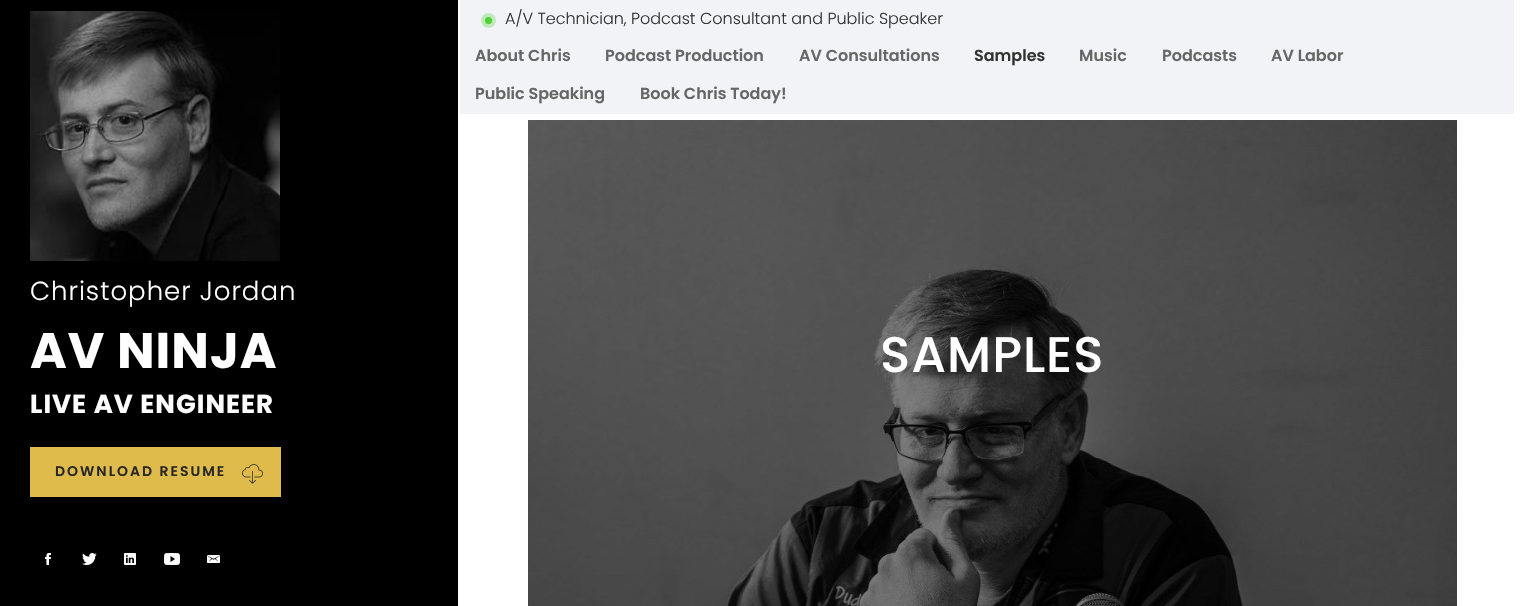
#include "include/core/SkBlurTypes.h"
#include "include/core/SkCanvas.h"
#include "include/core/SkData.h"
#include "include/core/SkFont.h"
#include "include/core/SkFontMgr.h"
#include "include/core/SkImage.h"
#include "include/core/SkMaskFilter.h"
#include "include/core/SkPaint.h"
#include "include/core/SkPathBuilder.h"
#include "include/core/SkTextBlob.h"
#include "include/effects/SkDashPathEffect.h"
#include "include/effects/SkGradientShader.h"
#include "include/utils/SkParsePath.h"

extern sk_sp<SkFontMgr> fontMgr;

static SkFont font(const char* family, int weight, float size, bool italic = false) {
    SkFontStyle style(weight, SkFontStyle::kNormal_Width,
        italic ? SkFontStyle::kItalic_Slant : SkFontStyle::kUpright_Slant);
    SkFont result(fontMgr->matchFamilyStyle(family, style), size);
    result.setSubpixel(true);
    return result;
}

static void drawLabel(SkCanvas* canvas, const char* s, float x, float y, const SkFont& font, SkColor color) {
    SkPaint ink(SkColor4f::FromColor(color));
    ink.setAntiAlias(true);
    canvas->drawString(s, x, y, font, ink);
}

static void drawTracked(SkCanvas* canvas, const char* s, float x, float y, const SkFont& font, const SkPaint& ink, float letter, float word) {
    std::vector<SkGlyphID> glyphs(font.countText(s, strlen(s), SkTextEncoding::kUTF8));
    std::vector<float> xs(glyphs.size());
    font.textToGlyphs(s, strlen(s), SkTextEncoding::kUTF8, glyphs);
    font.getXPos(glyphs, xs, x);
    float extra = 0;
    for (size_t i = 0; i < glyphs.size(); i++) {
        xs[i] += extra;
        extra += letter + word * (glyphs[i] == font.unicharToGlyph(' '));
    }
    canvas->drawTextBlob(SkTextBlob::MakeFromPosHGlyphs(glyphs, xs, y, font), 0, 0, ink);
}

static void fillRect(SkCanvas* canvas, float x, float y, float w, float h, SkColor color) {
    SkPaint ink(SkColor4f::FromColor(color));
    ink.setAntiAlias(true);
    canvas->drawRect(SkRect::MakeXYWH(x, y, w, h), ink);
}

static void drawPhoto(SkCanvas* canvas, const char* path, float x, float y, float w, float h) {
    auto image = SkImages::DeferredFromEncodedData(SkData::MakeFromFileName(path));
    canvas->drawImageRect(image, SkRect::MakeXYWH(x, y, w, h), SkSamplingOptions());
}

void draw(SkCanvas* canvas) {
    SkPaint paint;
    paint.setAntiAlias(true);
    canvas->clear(0xFF000000);
    fillRect(canvas, 458, 0, 1069, 606, 0xFFFFFFFF);
    fillRect(canvas, 460, 0, 1054, 114, 0xFFF1F3F6);
    paint.setColor(0xFF4DD133);
    canvas->drawCircle(488.5f, 20.5f, 3.5f, paint);
    paint.setColor(0x4D4DD133);
    canvas->drawCircle(488.5f, 20.5f, 7.5f, paint);
    SkFont font1 = font("Poppins", 300, 16);
    drawLabel(canvas, "A/V Technician, Podcast Consultant and Public Speaker", 505, 24, font1, 0xFF333333);
    SkFont font2 = font("Poppins", 600, 16);
    drawLabel(canvas, "About Chris", 475, 61, font2, 0xFF666666);
    drawLabel(canvas, "Podcast Production", 605, 61, font2, 0xFF666666);
    drawLabel(canvas, "AV Consultations", 799, 61, font2, 0xFF666666);
    drawLabel(canvas, "Samples", 974, 61, font2, 0xFF333333);
    drawLabel(canvas, "Music", 1079, 61, font2, 0xFF666666);
    drawLabel(canvas, "Podcasts", 1162, 61, font2, 0xFF666666);
    drawLabel(canvas, "AV Labor", 1271, 61, font2, 0xFF666666);
    drawLabel(canvas, "Public Speaking", 475, 99, font2, 0xFF666666);
    drawLabel(canvas, "Book Chris Today!", 640, 99, font2, 0xFF666666);
    drawPhoto(canvas, "assets/img1.png", 30, 11, 250, 250);
    SkFont font3 = font("Poppins", 300, 26);
    paint.setColor(0xFFFFFFFF);
    drawTracked(canvas, "Christopher Jordan", 30, 300, font3, paint, 1, 0);
    SkFont font4 = font("Poppins", 700, 50);
    drawTracked(canvas, "AV NINJA", 30, 368, font4, paint, 1, 0);
    SkFont font5 = font("Poppins", 700, 26);
    drawTracked(canvas, "LIVE AV ENGINEER", 30, 413, font5, paint, 1, 0);
    fillRect(canvas, 30, 447, 251, 50, 0xFFDFBB4B);
    SkFont font6 = font("Poppins", 600, 14);
    paint.setColor(0xFF282828);
    drawTracked(canvas, "DOWNLOAD RESUME", 55, 476, font6, paint, 2, 0);
    drawPhoto(canvas, "assets/img2.png", 242, 464, 21, 20);
    drawPhoto(canvas, "assets/img3.png", 45, 553, 6, 12);
    drawPhoto(canvas, "assets/img4.png", 82, 553, 15, 12);
    drawPhoto(canvas, "assets/img5.png", 124, 553, 12, 12);
    drawPhoto(canvas, "assets/img6.png", 164, 553, 16, 12);
    drawPhoto(canvas, "assets/img7.png", 207, 555, 13, 8);
    drawPhoto(canvas, "assets/img8.png", 528, 120, 929, 486);
    SkFont font7 = font("Poppins", 500, 50);
    paint.setColor(0xFFFFFFFF);
    drawTracked(canvas, "SAMPLES", 880, 372, font7, paint, 1, 0);
}
